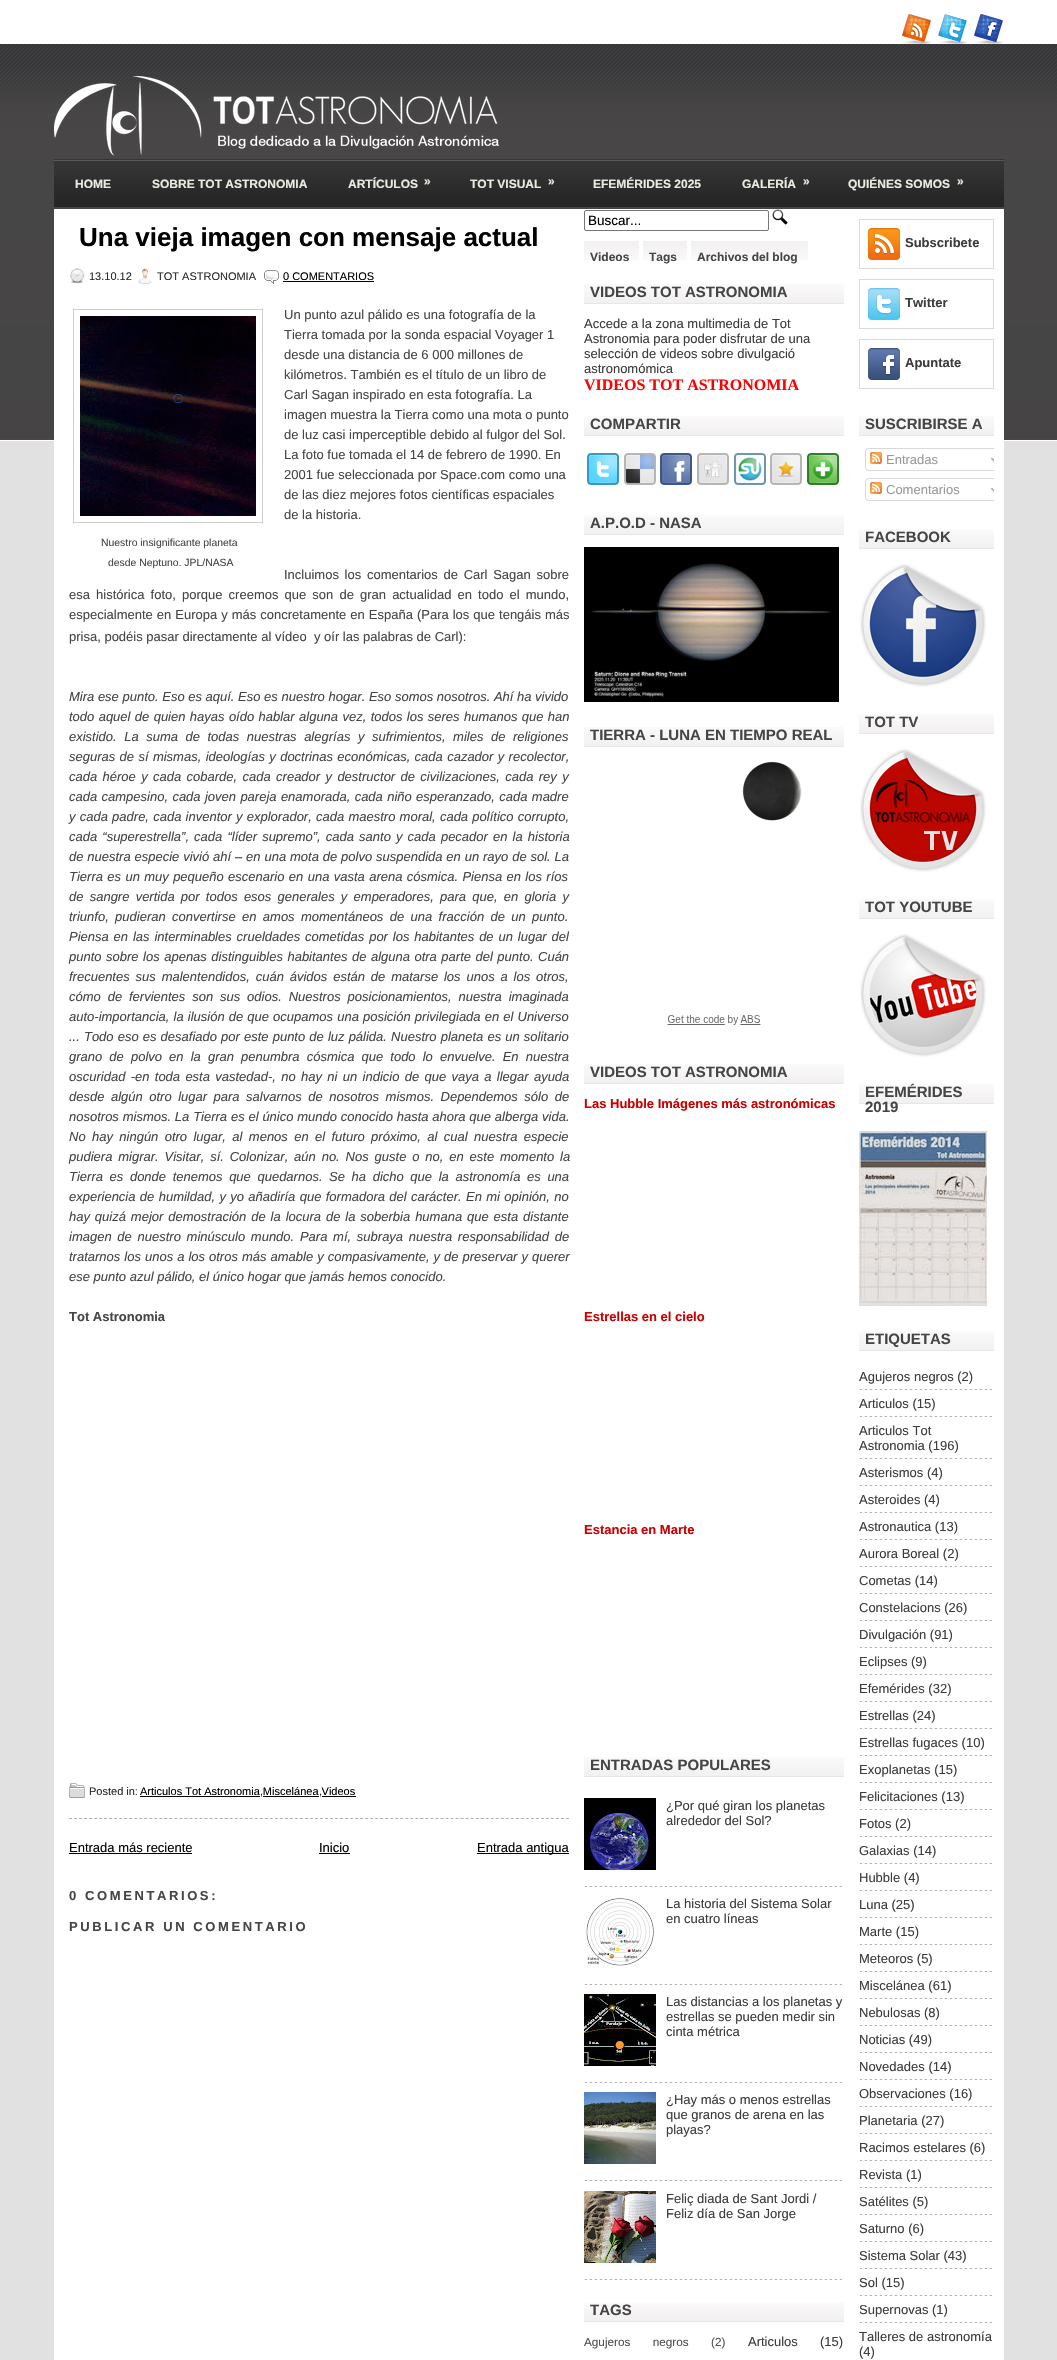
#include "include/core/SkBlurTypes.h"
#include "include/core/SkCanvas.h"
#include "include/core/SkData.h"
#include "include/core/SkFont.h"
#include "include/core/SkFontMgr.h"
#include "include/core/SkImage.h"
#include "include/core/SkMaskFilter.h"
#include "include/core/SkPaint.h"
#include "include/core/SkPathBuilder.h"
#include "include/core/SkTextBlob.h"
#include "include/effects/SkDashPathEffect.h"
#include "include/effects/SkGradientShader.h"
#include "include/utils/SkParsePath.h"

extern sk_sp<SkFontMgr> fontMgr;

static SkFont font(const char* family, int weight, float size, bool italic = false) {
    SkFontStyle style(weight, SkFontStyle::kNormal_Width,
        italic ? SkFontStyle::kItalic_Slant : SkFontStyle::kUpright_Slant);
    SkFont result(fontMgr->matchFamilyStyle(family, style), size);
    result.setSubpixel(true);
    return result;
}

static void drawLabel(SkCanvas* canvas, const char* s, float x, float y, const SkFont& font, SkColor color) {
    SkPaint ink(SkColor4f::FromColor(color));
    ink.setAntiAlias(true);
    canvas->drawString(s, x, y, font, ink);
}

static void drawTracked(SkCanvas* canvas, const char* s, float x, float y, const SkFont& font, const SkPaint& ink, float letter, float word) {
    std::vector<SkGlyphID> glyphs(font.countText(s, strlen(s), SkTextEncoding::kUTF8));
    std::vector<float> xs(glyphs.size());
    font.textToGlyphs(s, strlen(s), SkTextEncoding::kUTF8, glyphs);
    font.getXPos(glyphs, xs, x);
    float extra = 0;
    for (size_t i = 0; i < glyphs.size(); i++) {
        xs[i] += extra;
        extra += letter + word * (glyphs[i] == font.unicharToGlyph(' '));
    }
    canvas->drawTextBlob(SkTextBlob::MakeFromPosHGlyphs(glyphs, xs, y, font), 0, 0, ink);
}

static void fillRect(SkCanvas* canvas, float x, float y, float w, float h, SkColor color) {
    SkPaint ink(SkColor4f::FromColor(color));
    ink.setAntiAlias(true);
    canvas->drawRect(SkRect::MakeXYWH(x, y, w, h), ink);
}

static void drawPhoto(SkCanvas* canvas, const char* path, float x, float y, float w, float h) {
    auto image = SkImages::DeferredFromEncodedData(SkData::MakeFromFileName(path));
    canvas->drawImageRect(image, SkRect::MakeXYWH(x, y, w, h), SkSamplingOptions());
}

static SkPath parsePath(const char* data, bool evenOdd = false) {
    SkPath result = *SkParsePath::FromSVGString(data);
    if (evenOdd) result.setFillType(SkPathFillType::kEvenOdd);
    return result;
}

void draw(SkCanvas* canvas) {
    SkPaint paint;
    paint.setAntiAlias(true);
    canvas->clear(0xFFE1E1E1);
    drawPhoto(canvas, "assets/img1.png", 0, 0, 1057, 441);
    drawPhoto(canvas, "assets/img2.png", 902, 14, 29, 30);
    drawPhoto(canvas, "assets/img3.png", 938, 14, 29, 30);
    drawPhoto(canvas, "assets/img4.png", 974, 14, 29, 30);
    drawPhoto(canvas, "assets/img5.png", 54, 76, 446, 80);
    drawPhoto(canvas, "assets/img6.png", 54, 159, 950, 48);
    SkFont font1 = font("Liberation Sans", 700, 12);
    drawLabel(canvas, "HOME", 75, 188, font1, 0xFFE9EDE1);
    drawLabel(canvas, "SOBRE TOT ASTRONOMIA", 152, 188, font1, 0xFFE9EDE1);
    drawLabel(canvas, "ARTÍCULOS", 348, 188, font1, 0xFFE9EDE1);
    drawLabel(canvas, "»", 424, 185, font1, 0xFFE9EDE1);
    drawLabel(canvas, "TOT VISUAL", 470, 188, font1, 0xFFE9EDE1);
    drawLabel(canvas, "»", 548, 185, font1, 0xFFE9EDE1);
    drawLabel(canvas, "EFEMÉRIDES 2025", 593, 188, font1, 0xFFE9EDE1);
    drawLabel(canvas, "GALERÍA", 742, 188, font1, 0xFFE9EDE1);
    drawLabel(canvas, "»", 803, 185, font1, 0xFFE9EDE1);
    drawLabel(canvas, "QUIÉNES SOMOS", 848, 188, font1, 0xFFE9EDE1);
    drawLabel(canvas, "»", 957, 185, font1, 0xFFE9EDE1);
    fillRect(canvas, 54, 209, 950, 2151, 0xFFFFFFFF);
    paint.setStroke(true);
    paint.setStrokeWidth(1);
    paint.setColor(0xFFB5ADAD);
    paint.setPathEffect(SkDashPathEffect::Make({{3, 2.02f}}, 0));
    canvas->drawPath(parsePath("M69 1818.5H569"), paint);
    paint.setPathEffect(nullptr);
    SkFont font2 = font("Liberation Sans", 700, 26);
    drawLabel(canvas, "Una vieja imagen con mensaje actual", 79, 246, font2, 0xFF000000);
    drawPhoto(canvas, "assets/img7.png", 70, 268, 15, 16);
    SkFont font3 = font("Liberation Sans", 400, 11);
    drawLabel(canvas, "13.10.12", 89, 280, font3, 0xFF2B2A2A);
    drawPhoto(canvas, "assets/img8.png", 138, 268, 14, 16);
    drawLabel(canvas, "TOT ASTRONOMIA", 157, 280, font3, 0xFF2B2A2A);
    drawPhoto(canvas, "assets/img9.png", 264, 270, 15, 14);
    drawLabel(canvas, "0 COMENTARIOS", 283, 280, font3, 0xFF000000);
    fillRect(canvas, 283, 281, 91, 1, 0xFF000000);
    SkFont font4 = font("Liberation Sans", 400, 13);
    drawLabel(canvas, "Un punto azul pálido es una fotografía de la", 284, 319, font4, 0xFF464545);
    drawLabel(canvas, "Tierra tomada por la sonda espacial Voyager 1", 284, 339, font4, 0xFF464545);
    drawLabel(canvas, "desde una distancia de 6 000 millones de", 284, 359, font4, 0xFF464545);
    drawLabel(canvas, "kilómetros. También es el título de un libro de", 284, 379, font4, 0xFF464545);
    drawLabel(canvas, "Carl Sagan inspirado en esta fotografía. La", 284, 399, font4, 0xFF464545);
    drawLabel(canvas, "imagen muestra la Tierra como una mota o punto", 284, 419, font4, 0xFF464545);
    drawLabel(canvas, "de luz casi imperceptible debido al fulgor del Sol.", 284, 439, font4, 0xFF464545);
    drawLabel(canvas, "La foto fue tomada el 14 de febrero de 1990. En", 284, 459, font4, 0xFF464545);
    drawLabel(canvas, "2001 fue seleccionada por Space.com como una", 284, 479, font4, 0xFF464545);
    drawLabel(canvas, "de las diez mejores fotos científicas espaciales", 284, 499, font4, 0xFF464545);
    drawLabel(canvas, "de la historia.", 284, 519, font4, 0xFF464545);
    paint.setColor(0xFFD0CFCF);
    canvas->drawRect(SkRect::MakeXYWH(73.5f, 309.5f, 189, 213), paint);
    drawPhoto(canvas, "assets/img10.png", 80, 316, 176, 200);
    SkFont font5 = font("Liberation Sans", 400, 10.4f);
    drawLabel(canvas, "Nuestro insignificante planeta", 101, 546, font5, 0xFF464545);
    drawLabel(canvas, "desde Neptuno. JPL/NASA", 108, 566, font5, 0xFF464545);
    paint.setStroke(false);
    paint.setColor(0xFF464545);
    drawTracked(canvas, "Incluimos los comentarios de Carl Sagan sobre", 284, 579, font4, paint, 0, 2.1f);
    drawTracked(canvas, "esa histórica foto, porque creemos que son de gran actualidad en todo el mundo,", 69, 599, font4, paint, 0, 2.5f);
    drawTracked(canvas, "especialmente en Europa y más concretamente en España (Para los que tengáis más", 69, 619, font4, paint, 0, 0.4f);
    drawLabel(canvas, "prisa, podéis pasar directamente al vídeo  y oír las palabras de Carl):", 69, 641, font4, 0xFF464545);
    SkFont font6 = font("Liberation Sans", 400, 13, true);
    drawLabel(canvas, "Mira ese punto. Eso es aquí. Eso es nuestro hogar. Eso somos nosotros. Ahí ha vivido", 69, 701, font6, 0xFF464545);
    drawTracked(canvas, "todo aquel de quien hayas oído hablar alguna vez, todos los seres humanos que han", 69, 721, font6, paint, 0, 0.75f);
    drawTracked(canvas, "existido. La suma de todas nuestras alegrías y sufrimientos, miles de religiones", 69, 741, font6, paint, 0, 3.9f);
    drawTracked(canvas, "seguras de sí mismas, ideologías y doctrinas económicas, cada cazador y recolector,", 69, 761, font6, paint, 0, 0.75f);
    drawTracked(canvas, "cada héroe y cada cobarde, cada creador y destructor de civilizaciones, cada rey y", 69, 781, font6, paint, 0, 1.75f);
    drawTracked(canvas, "cada campesino, cada joven pareja enamorada, cada niño esperanzado, cada madre", 69, 801, font6, paint, 0, 0.75f);
    drawTracked(canvas, "y cada padre, cada inventor y explorador, cada maestro moral, cada político corrupto,", 69, 821, font6, paint, 0, 0.6f);
    drawTracked(canvas, "cada “superestrella”, cada “líder supremo”, cada santo y cada pecador en la historia", 69, 841, font6, paint, 0, 1.5f);
    drawTracked(canvas, "de nuestra especie vivió ahí – en una mota de polvo suspendida en un rayo de sol. La", 69, 861, font6, paint, 0, 0.25f);
    drawTracked(canvas, "Tierra es un muy pequeño escenario en una vasta arena cósmica. Piensa en los ríos", 69, 881, font6, paint, 0, 0.75f);
    drawTracked(canvas, "de sangre vertida por todos esos generales y emperadores, para que, en gloria y", 69, 901, font6, paint, 0, 2.6f);
    drawTracked(canvas, "triunfo, pudieran convertirse en amos momentáneos de una fracción de un punto.", 69, 921, font6, paint, 0, 2.75f);
    drawTracked(canvas, "Piensa en las interminables crueldades cometidas por los habitantes de un lugar del", 69, 941, font6, paint, 0, 1.25f);
    drawTracked(canvas, "punto sobre los apenas distinguibles habitantes de alguna otra parte del punto. Cuán", 69, 961, font6, paint, 0, 0.9f);
    drawTracked(canvas, "frecuentes sus malentendidos, cuán ávidos están de matarse los unos a los otros,", 69, 981, font6, paint, 0, 2.25f);
    drawTracked(canvas, "cómo de fervientes son sus odios. Nuestros posicionamientos, nuestra imaginada", 69, 1001, font6, paint, 0, 3.25f);
    drawTracked(canvas, "auto-importancia, la ilusión de que ocupamos una posición privilegiada en el Universo", 69, 1021, font6, paint, 0, 0.5f);
    drawTracked(canvas, "... Todo eso es desafiado por este punto de luz pálida. Nuestro planeta es un solitario", 69, 1041, font6, paint, 0, 0.5f);
    drawTracked(canvas, "grano de polvo en la gran penumbra cósmica que todo lo envuelve. En nuestra", 69, 1061, font6, paint, 0, 3.5f);
    drawTracked(canvas, "oscuridad -en toda esta vastedad-, no hay ni un indicio de que vaya a llegar ayuda", 69, 1081, font6, paint, 0, 1.7f);
    drawTracked(canvas, "desde algún otro lugar para salvarnos de nosotros mismos. Dependemos sólo de", 69, 1101, font6, paint, 0, 2.9f);
    drawTracked(canvas, "nosotros mismos. La Tierra es el único mundo conocido hasta ahora que alberga vida.", 69, 1121, font6, paint, 0, 0.2f);
    drawTracked(canvas, "No hay ningún otro lugar, al menos en el futuro próximo, al cual nuestra especie", 69, 1141, font6, paint, 0, 2.75f);
    drawTracked(canvas, "pudiera migrar. Visitar, sí. Colonizar, aún no. Nos guste o no, en este momento la", 69, 1161, font6, paint, 0, 2.25f);
    drawTracked(canvas, "Tierra es donde tenemos que quedarnos. Se ha dicho que la astronomía es una", 69, 1181, font6, paint, 0, 3);
    drawTracked(canvas, "experiencia de humildad, y yo añadiría que formadora del carácter. En mi opinión, no", 69, 1201, font6, paint, 0, 0.75f);
    drawTracked(canvas, "hay quizá mejor demostración de la locura de la soberbia humana que esta distante", 69, 1221, font6, paint, 0, 1.3f);
    drawTracked(canvas, "imagen de nuestro minúsculo mundo. Para mí, subraya nuestra responsabilidad de", 69, 1241, font6, paint, 0, 2.1f);
    drawTracked(canvas, "tratarnos los unos a los otros más amable y compasivamente, y de preservar y querer", 69, 1261, font6, paint, 0, 0.4f);
    drawLabel(canvas, "ese punto azul pálido, el único hogar que jamás hemos conocido.", 69, 1281, font6, 0xFF464545);
    SkFont font7 = font("Liberation Sans", 700, 13);
    drawLabel(canvas, "Tot Astronomia", 69, 1321, font7, 0xFF464545);
    drawPhoto(canvas, "assets/img11.png", 69, 1783, 16, 15);
    drawLabel(canvas, "Posted in:", 89, 1795, font3, 0xFF2B2A2A);
    drawLabel(canvas, "Articulos Tot Astronomia Miscelánea Videos", 140, 1795, font3, 0xFF000000);
    drawLabel(canvas, ",", 260, 1795, font3, 0xFF2B2A2A);
    fillRect(canvas, 140, 1796, 120, 1, 0xFF000000);
    fillRect(canvas, 263, 1796, 56, 1, 0xFF000000);
    drawLabel(canvas, ",", 319, 1795, font3, 0xFF2B2A2A);
    fillRect(canvas, 322, 1796, 34, 1, 0xFF000000);
    drawLabel(canvas, "Entrada más reciente", 69, 1852, font4, 0xFF000000);
    fillRect(canvas, 69, 1853, 123, 1, 0xFF000000);
    drawLabel(canvas, "Inicio", 319, 1852, font4, 0xFF000000);
    fillRect(canvas, 319, 1853, 31, 1, 0xFF000000);
    fillRect(canvas, 477, 1853, 92, 1, 0xFF000000);
    drawLabel(canvas, "Entrada antigua", 477, 1852, font4, 0xFF000000);
    drawTracked(canvas, "0 COMENTARIOS:", 69, 1900, font7, paint, 2.6f, 0);
    drawTracked(canvas, "PUBLICAR UN COMENTARIO", 69, 1931, font7, paint, 2.6f, 0);
    paint.setStroke(true);
    paint.setColor(0xFF767676);
    canvas->drawRoundRect(SkRect::MakeXYWH(584.5f, 210.5f, 184, 20), 1.5f, 1.5f, paint);
    SkFont font8 = font("Liberation Sans", 400, 13.5f);
    drawLabel(canvas, "Buscar...", 588, 225, font8, 0xFF000000);
    drawPhoto(canvas, "assets/img12.png", 772, 209, 16, 16);
    drawPhoto(canvas, "assets/img13.png", 584, 241, 55, 19);
    drawLabel(canvas, "Videos", 590, 261, font1, 0xFF464545);
    drawPhoto(canvas, "assets/img14.png", 643, 241, 44, 19);
    drawLabel(canvas, "Tags", 649, 261, font1, 0xFF464545);
    drawPhoto(canvas, "assets/img15.png", 691, 241, 117, 19);
    drawLabel(canvas, "Archivos del blog", 697, 261, font1, 0xFF464545);
    drawPhoto(canvas, "assets/img16.png", 584, 284, 260, 20);
    SkFont font9 = font("Liberation Sans", 700, 15);
    drawLabel(canvas, "VIDEOS TOT ASTRONOMIA", 590, 297, font9, 0xFF464545);
    drawLabel(canvas, "Accede a la zona multimedia de Tot", 584, 328, font4, 0xFF3D3C3C);
    drawLabel(canvas, "Astronomia para poder disfrutar de una", 584, 343, font4, 0xFF3D3C3C);
    drawLabel(canvas, "selección de videos sobre divulgació", 584, 358, font4, 0xFF3D3C3C);
    drawLabel(canvas, "astronomómica", 584, 373, font4, 0xFF3D3C3C);
    SkFont font10 = font("Liberation Serif", 700, 16);
    drawLabel(canvas, "VIDEOS TOT ASTRONOMIA", 584, 390, font10, 0xFFFF0000);
    drawPhoto(canvas, "assets/img16.png", 584, 416, 260, 20);
    drawLabel(canvas, "COMPARTIR", 590, 429, font9, 0xFF464545);
    drawPhoto(canvas, "assets/img17.png", 587, 453, 32, 32);
    drawPhoto(canvas, "assets/img18.png", 624, 453, 32, 32);
    drawPhoto(canvas, "assets/img19.png", 660, 453, 32, 32);
    drawPhoto(canvas, "assets/img20.png", 697, 453, 32, 32);
    drawPhoto(canvas, "assets/img21.png", 734, 453, 32, 32);
    drawPhoto(canvas, "assets/img22.png", 770, 453, 32, 32);
    drawPhoto(canvas, "assets/img23.png", 807, 453, 32, 32);
    drawPhoto(canvas, "assets/img16.png", 584, 515, 260, 20);
    drawLabel(canvas, "A.P.O.D - NASA", 590, 528, font9, 0xFF464545);
    drawPhoto(canvas, "assets/img24.png", 584, 547, 255, 155);
    drawPhoto(canvas, "assets/img16.png", 584, 727, 260, 20);
    drawLabel(canvas, "TIERRA - LUNA EN TIEMPO REAL", 590, 740, font9, 0xFF464545);
    drawPhoto(canvas, "assets/img25.png", 667, 761, 135, 264);
    drawPhoto(canvas, "assets/img16.png", 584, 1064, 260, 20);
    drawLabel(canvas, "VIDEOS TOT ASTRONOMIA", 590, 1077, font9, 0xFF464545);
    drawLabel(canvas, "Las Hubble Imágenes más astronómicas", 584, 1108, font7, 0xFFCC0000);
    drawLabel(canvas, "Estrellas en el cielo", 584, 1321, font7, 0xFFCC0000);
    drawLabel(canvas, "Estancia en Marte", 584, 1534, font7, 0xFFCC0000);
    drawPhoto(canvas, "assets/img16.png", 584, 1757, 260, 20);
    drawLabel(canvas, "ENTRADAS POPULARES", 590, 1770, font9, 0xFF464545);
    drawPhoto(canvas, "assets/img26.png", 584, 1886, 258, 1);
    drawPhoto(canvas, "assets/img27.png", 584, 1798, 72, 72);
    drawLabel(canvas, "¿Por qué giran los planetas", 666, 1810, font4, 0xFF3D3C3C);
    drawLabel(canvas, "alrededor del Sol?", 666, 1825, font4, 0xFF3D3C3C);
    drawPhoto(canvas, "assets/img26.png", 584, 1984, 258, 1);
    drawPhoto(canvas, "assets/img28.png", 584, 1896, 72, 72);
    drawLabel(canvas, "La historia del Sistema Solar", 666, 1908, font4, 0xFF3D3C3C);
    drawLabel(canvas, "en cuatro líneas", 666, 1923, font4, 0xFF3D3C3C);
    drawPhoto(canvas, "assets/img26.png", 584, 2082, 258, 1);
    drawPhoto(canvas, "assets/img29.png", 584, 1994, 72, 72);
    drawLabel(canvas, "Las distancias a los planetas y", 666, 2006, font4, 0xFF3D3C3C);
    drawLabel(canvas, "estrellas se pueden medir sin", 666, 2021, font4, 0xFF3D3C3C);
    drawLabel(canvas, "cinta métrica", 666, 2036, font4, 0xFF3D3C3C);
    drawPhoto(canvas, "assets/img26.png", 584, 2180, 258, 1);
    drawPhoto(canvas, "assets/img30.png", 584, 2092, 72, 72);
    drawLabel(canvas, "¿Hay más o menos estrellas", 666, 2104, font4, 0xFF3D3C3C);
    drawLabel(canvas, "que granos de arena en las", 666, 2119, font4, 0xFF3D3C3C);
    drawLabel(canvas, "playas?", 666, 2134, font4, 0xFF3D3C3C);
    drawPhoto(canvas, "assets/img26.png", 584, 2279, 258, 1);
    drawPhoto(canvas, "assets/img31.png", 584, 2191, 72, 72);
    drawLabel(canvas, "Feliç diada de Sant Jordi /", 666, 2203, font4, 0xFF3D3C3C);
    drawLabel(canvas, "Feliz día de San Jorge", 666, 2218, font4, 0xFF3D3C3C);
    drawPhoto(canvas, "assets/img16.png", 584, 2302, 260, 20);
    drawLabel(canvas, "TAGS", 590, 2315, font9, 0xFF464545);
    SkFont font11 = font("Liberation Sans", 400, 11.75f);
    paint.setStroke(false);
    paint.setColor(0xFF505050);
    drawTracked(canvas, "Agujeros negros", 584, 2346, font11, paint, 0, 19);
    drawLabel(canvas, "(2)", 711, 2346, font11, 0xFF505050);
    drawLabel(canvas, "Articulos", 748, 2346, font4, 0xFF3D3C3C);
    drawLabel(canvas, "(15)", 820, 2346, font4, 0xFF3D3C3C);
    paint.setStroke(true);
    paint.setColor(0xFFDBDADA);
    canvas->drawRect(SkRect::MakeXYWH(859.5f, 219.5f, 134, 49), paint);
    drawPhoto(canvas, "assets/img32.png", 868, 228, 32, 32);
    drawLabel(canvas, "Subscribete", 905, 247, font7, 0xFF3D3C3C);
    canvas->drawRect(SkRect::MakeXYWH(859.5f, 279.5f, 134, 49), paint);
    drawPhoto(canvas, "assets/img33.png", 868, 288, 32, 32);
    drawLabel(canvas, "Twitter", 905, 307, font7, 0xFF3D3C3C);
    canvas->drawRect(SkRect::MakeXYWH(859.5f, 339.5f, 134, 49), paint);
    drawPhoto(canvas, "assets/img34.png", 868, 348, 32, 32);
    drawLabel(canvas, "Apuntate", 905, 367, font7, 0xFF3D3C3C);
    drawPhoto(canvas, "assets/img35.png", 859, 416, 135, 20);
    drawLabel(canvas, "SUSCRIBIRSE A", 865, 429, font9, 0xFF464545);
    drawPhoto(canvas, "assets/img36.png", 865, 448, 129, 20);
    drawPhoto(canvas, "assets/img37.png", 870, 452, 12, 12);
    drawLabel(canvas, "Entradas", 886, 464, font4, 0xFF999999);
    drawPhoto(canvas, "assets/img38.png", 990, 457, 4, 7);
    drawPhoto(canvas, "assets/img39.png", 865, 468, 129, 3);
    drawPhoto(canvas, "assets/img36.png", 865, 478, 129, 20);
    drawPhoto(canvas, "assets/img37.png", 870, 482, 12, 12);
    drawLabel(canvas, "Comentarios", 886, 494, font4, 0xFF999999);
    drawPhoto(canvas, "assets/img38.png", 990, 487, 4, 7);
    drawPhoto(canvas, "assets/img39.png", 865, 498, 129, 3);
    drawPhoto(canvas, "assets/img35.png", 859, 529, 135, 20);
    drawLabel(canvas, "FACEBOOK", 865, 542, font9, 0xFF464545);
    drawPhoto(canvas, "assets/img40.png", 860, 564, 126, 123);
    drawPhoto(canvas, "assets/img35.png", 859, 714, 135, 20);
    drawLabel(canvas, "TOT TV", 865, 727, font9, 0xFF464545);
    drawPhoto(canvas, "assets/img41.png", 860, 749, 126, 123);
    drawPhoto(canvas, "assets/img35.png", 859, 899, 135, 20);
    drawLabel(canvas, "TOT YOUTUBE", 865, 912, font9, 0xFF464545);
    drawPhoto(canvas, "assets/img42.png", 860, 934, 126, 123);
    drawPhoto(canvas, "assets/img35.png", 859, 1084, 135, 20);
    drawLabel(canvas, "EFEMÉRIDES", 865, 1097, font9, 0xFF464545);
    drawLabel(canvas, "2019", 865, 1112, font9, 0xFF464545);
    drawPhoto(canvas, "assets/img43.png", 859, 1131, 128, 175);
    drawPhoto(canvas, "assets/img35.png", 859, 1331, 135, 20);
    drawLabel(canvas, "ETIQUETAS", 865, 1344, font9, 0xFF464545);
    drawPhoto(canvas, "assets/img44.png", 859, 1389, 133, 1);
    drawLabel(canvas, "Agujeros negros (2)", 859, 1381, font4, 0xFF3D3C3C);
    drawPhoto(canvas, "assets/img44.png", 859, 1416, 133, 1);
    drawLabel(canvas, "Articulos (15)", 859, 1408, font4, 0xFF3D3C3C);
    drawPhoto(canvas, "assets/img44.png", 859, 1458, 133, 1);
    drawLabel(canvas, "Articulos Tot", 859, 1435, font4, 0xFF3D3C3C);
    drawLabel(canvas, "Astronomia (196)", 859, 1450, font4, 0xFF3D3C3C);
    drawPhoto(canvas, "assets/img44.png", 859, 1485, 133, 1);
    drawLabel(canvas, "Asterismos (4)", 859, 1477, font4, 0xFF3D3C3C);
    drawPhoto(canvas, "assets/img44.png", 859, 1512, 133, 1);
    drawLabel(canvas, "Asteroides (4)", 859, 1504, font4, 0xFF3D3C3C);
    drawPhoto(canvas, "assets/img44.png", 859, 1539, 133, 1);
    drawLabel(canvas, "Astronautica (13)", 859, 1531, font4, 0xFF3D3C3C);
    drawPhoto(canvas, "assets/img44.png", 859, 1566, 133, 1);
    drawLabel(canvas, "Aurora Boreal (2)", 859, 1558, font4, 0xFF3D3C3C);
    drawPhoto(canvas, "assets/img44.png", 859, 1593, 133, 1);
    drawLabel(canvas, "Cometas (14)", 859, 1585, font4, 0xFF3D3C3C);
    drawPhoto(canvas, "assets/img44.png", 859, 1620, 133, 1);
    drawLabel(canvas, "Constelacions (26)", 859, 1612, font4, 0xFF3D3C3C);
    drawPhoto(canvas, "assets/img44.png", 859, 1647, 133, 1);
    drawLabel(canvas, "Divulgación (91)", 859, 1639, font4, 0xFF3D3C3C);
    drawPhoto(canvas, "assets/img44.png", 859, 1674, 133, 1);
    drawLabel(canvas, "Eclipses (9)", 859, 1666, font4, 0xFF3D3C3C);
    drawPhoto(canvas, "assets/img44.png", 859, 1701, 133, 1);
    drawLabel(canvas, "Efemérides (32)", 859, 1693, font4, 0xFF3D3C3C);
    drawPhoto(canvas, "assets/img44.png", 859, 1728, 133, 1);
    drawLabel(canvas, "Estrellas (24)", 859, 1720, font4, 0xFF3D3C3C);
    drawPhoto(canvas, "assets/img44.png", 859, 1755, 133, 1);
    drawLabel(canvas, "Estrellas fugaces (10)", 859, 1747, font4, 0xFF3D3C3C);
    drawPhoto(canvas, "assets/img44.png", 859, 1782, 133, 1);
    drawLabel(canvas, "Exoplanetas (15)", 859, 1774, font4, 0xFF3D3C3C);
    drawPhoto(canvas, "assets/img44.png", 859, 1809, 133, 1);
    drawLabel(canvas, "Felicitaciones (13)", 859, 1801, font4, 0xFF3D3C3C);
    drawPhoto(canvas, "assets/img44.png", 859, 1836, 133, 1);
    drawLabel(canvas, "Fotos (2)", 859, 1828, font4, 0xFF3D3C3C);
    drawPhoto(canvas, "assets/img44.png", 859, 1863, 133, 1);
    drawLabel(canvas, "Galaxias (14)", 859, 1855, font4, 0xFF3D3C3C);
    drawPhoto(canvas, "assets/img44.png", 859, 1890, 133, 1);
    drawLabel(canvas, "Hubble (4)", 859, 1882, font4, 0xFF3D3C3C);
    drawPhoto(canvas, "assets/img44.png", 859, 1917, 133, 1);
    drawLabel(canvas, "Luna (25)", 859, 1909, font4, 0xFF3D3C3C);
    drawPhoto(canvas, "assets/img44.png", 859, 1944, 133, 1);
    drawLabel(canvas, "Marte (15)", 859, 1936, font4, 0xFF3D3C3C);
    drawPhoto(canvas, "assets/img44.png", 859, 1971, 133, 1);
    drawLabel(canvas, "Meteoros (5)", 859, 1963, font4, 0xFF3D3C3C);
    drawPhoto(canvas, "assets/img44.png", 859, 1998, 133, 1);
    drawLabel(canvas, "Miscelánea (61)", 859, 1990, font4, 0xFF3D3C3C);
    drawPhoto(canvas, "assets/img44.png", 859, 2025, 133, 1);
    drawLabel(canvas, "Nebulosas (8)", 859, 2017, font4, 0xFF3D3C3C);
    drawPhoto(canvas, "assets/img44.png", 859, 2052, 133, 1);
    drawLabel(canvas, "Noticias (49)", 859, 2044, font4, 0xFF3D3C3C);
    drawPhoto(canvas, "assets/img44.png", 859, 2079, 133, 1);
    drawLabel(canvas, "Novedades (14)", 859, 2071, font4, 0xFF3D3C3C);
    drawPhoto(canvas, "assets/img44.png", 859, 2106, 133, 1);
    drawLabel(canvas, "Observaciones (16)", 859, 2098, font4, 0xFF3D3C3C);
    drawPhoto(canvas, "assets/img44.png", 859, 2133, 133, 1);
    drawLabel(canvas, "Planetaria (27)", 859, 2125, font4, 0xFF3D3C3C);
    drawPhoto(canvas, "assets/img44.png", 859, 2160, 133, 1);
    drawLabel(canvas, "Racimos estelares (6)", 859, 2152, font4, 0xFF3D3C3C);
    drawPhoto(canvas, "assets/img44.png", 859, 2187, 133, 1);
    drawLabel(canvas, "Revista (1)", 859, 2179, font4, 0xFF3D3C3C);
    drawPhoto(canvas, "assets/img44.png", 859, 2214, 133, 1);
    drawLabel(canvas, "Satélites (5)", 859, 2206, font4, 0xFF3D3C3C);
    drawPhoto(canvas, "assets/img44.png", 859, 2241, 133, 1);
    drawLabel(canvas, "Saturno (6)", 859, 2233, font4, 0xFF3D3C3C);
    drawPhoto(canvas, "assets/img44.png", 859, 2268, 133, 1);
    drawLabel(canvas, "Sistema Solar (43)", 859, 2260, font4, 0xFF3D3C3C);
    drawPhoto(canvas, "assets/img44.png", 859, 2295, 133, 1);
    drawLabel(canvas, "Sol (15)", 859, 2287, font4, 0xFF3D3C3C);
    drawPhoto(canvas, "assets/img44.png", 859, 2322, 133, 1);
    drawLabel(canvas, "Supernovas (1)", 859, 2314, font4, 0xFF3D3C3C);
    drawLabel(canvas, "Talleres de astronomía", 859, 2341, font4, 0xFF3D3C3C);
    drawLabel(canvas, "(4)", 859, 2356, font4, 0xFF3D3C3C);
}
